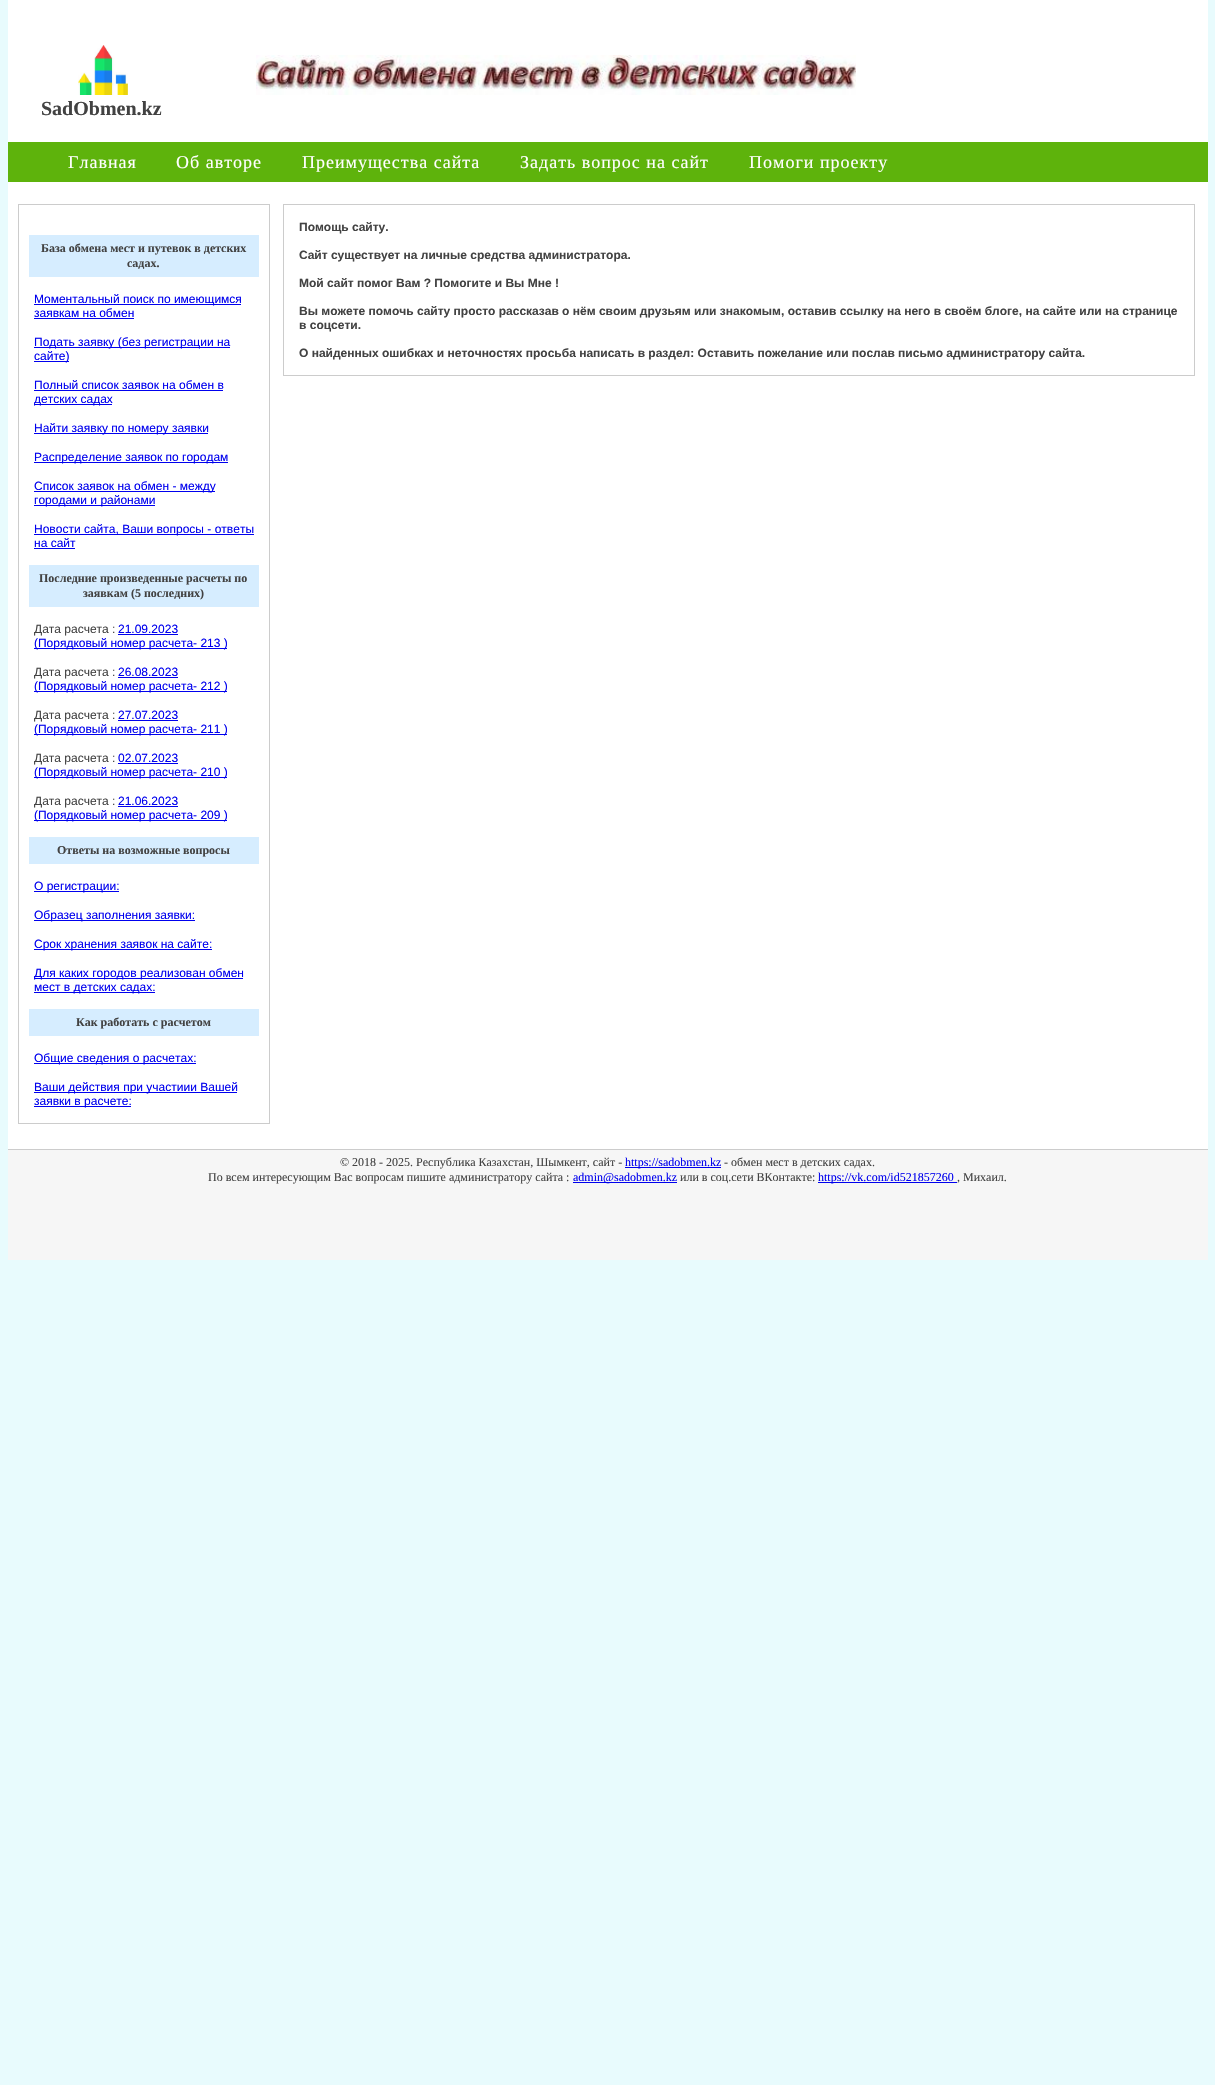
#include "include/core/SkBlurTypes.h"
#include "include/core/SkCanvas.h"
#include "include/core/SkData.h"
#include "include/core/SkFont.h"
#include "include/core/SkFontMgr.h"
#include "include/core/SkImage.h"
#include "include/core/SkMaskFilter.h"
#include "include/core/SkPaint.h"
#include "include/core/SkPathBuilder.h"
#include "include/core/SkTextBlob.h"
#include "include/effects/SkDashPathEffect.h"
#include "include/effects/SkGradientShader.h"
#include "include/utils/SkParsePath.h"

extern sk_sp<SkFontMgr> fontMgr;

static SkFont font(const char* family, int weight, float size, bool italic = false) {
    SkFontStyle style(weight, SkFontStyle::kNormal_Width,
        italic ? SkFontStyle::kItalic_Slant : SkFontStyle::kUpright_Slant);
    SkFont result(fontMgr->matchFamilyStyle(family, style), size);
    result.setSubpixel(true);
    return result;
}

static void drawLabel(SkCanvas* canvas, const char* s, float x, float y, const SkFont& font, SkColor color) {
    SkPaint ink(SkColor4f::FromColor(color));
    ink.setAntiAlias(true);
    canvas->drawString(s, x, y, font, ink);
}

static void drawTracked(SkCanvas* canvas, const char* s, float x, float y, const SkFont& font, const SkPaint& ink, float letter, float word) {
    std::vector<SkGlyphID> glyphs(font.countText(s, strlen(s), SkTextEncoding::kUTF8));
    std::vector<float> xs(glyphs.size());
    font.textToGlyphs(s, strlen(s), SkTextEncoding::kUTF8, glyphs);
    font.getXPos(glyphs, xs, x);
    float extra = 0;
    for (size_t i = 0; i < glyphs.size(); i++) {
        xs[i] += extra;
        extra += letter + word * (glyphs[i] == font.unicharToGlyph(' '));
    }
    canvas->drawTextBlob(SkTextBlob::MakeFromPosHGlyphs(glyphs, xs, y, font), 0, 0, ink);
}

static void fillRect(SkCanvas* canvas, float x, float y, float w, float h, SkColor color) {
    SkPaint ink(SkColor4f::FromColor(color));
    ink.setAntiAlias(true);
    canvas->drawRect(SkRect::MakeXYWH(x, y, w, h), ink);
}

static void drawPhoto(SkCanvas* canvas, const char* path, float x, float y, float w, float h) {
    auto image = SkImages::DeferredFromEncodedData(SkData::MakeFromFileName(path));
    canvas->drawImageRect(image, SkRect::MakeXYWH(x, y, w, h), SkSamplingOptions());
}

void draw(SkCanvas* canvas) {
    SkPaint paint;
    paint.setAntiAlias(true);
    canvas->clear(0xFFE8FBFD);
    fillRect(canvas, 8, 0, 1200, 1149, 0xFFFFFFFF);
    drawPhoto(canvas, "assets/img1.png", 78, 45, 50, 50);
    drawPhoto(canvas, "assets/img2.png", 256, 55, 600, 40);
    SkFont font1 = font("Liberation Serif", 700, 20);
    drawLabel(canvas, "SadObmen.kz", 41, 115, font1, 0xFF424242);
    fillRect(canvas, 8, 142, 1200, 40, 0xFF5EB30C);
    SkFont font2 = font("Liberation Serif", 400, 18);
    paint.setColor(0xFFFFFFFF);
    drawTracked(canvas, "Главная", 68, 168, font2, paint, 1, 0);
    drawTracked(canvas, "Об авторе", 176, 168, font2, paint, 1, 0);
    drawTracked(canvas, "Преимущества сайта", 302, 168, font2, paint, 1, 0);
    drawTracked(canvas, "Задать вопрос на сайт", 520, 168, font2, paint, 1, 0);
    drawTracked(canvas, "Помоги проекту", 749, 168, font2, paint, 1, 0);
    paint.setStroke(true);
    paint.setStrokeWidth(1);
    paint.setColor(0xFFCCCCCC);
    canvas->drawRect(SkRect::MakeXYWH(18.5f, 204.5f, 251, 919), paint);
    fillRect(canvas, 29, 235, 230, 42, 0xFFD6EDFF);
    SkFont font3 = font("Liberation Serif", 700, 12);
    drawLabel(canvas, "База обмена мест и путевок в детских", 41, 252, font3, 0xFF424242);
    drawLabel(canvas, "садах.", 127, 267, font3, 0xFF424242);
    fillRect(canvas, 34, 304, 207, 1, 0xFF0000EE);
    SkFont font4 = font("Liberation Sans", 400, 12);
    drawLabel(canvas, "Моментальный поиск по имеющимся", 34, 303, font4, 0xFF0000EE);
    drawLabel(canvas, "заявкам на обмен", 34, 317, font4, 0xFF0000EE);
    fillRect(canvas, 34, 318, 100, 1, 0xFF0000EE);
    fillRect(canvas, 34, 347, 196, 1, 0xFF0000EE);
    drawLabel(canvas, "Подать заявку (без регистрации на", 34, 346, font4, 0xFF0000EE);
    fillRect(canvas, 34, 361, 35, 1, 0xFF0000EE);
    drawLabel(canvas, "сайте)", 34, 360, font4, 0xFF0000EE);
    drawLabel(canvas, "Полный список заявок на обмен в", 34, 389, font4, 0xFF0000EE);
    fillRect(canvas, 34, 390, 189, 1, 0xFF0000EE);
    fillRect(canvas, 34, 404, 78, 1, 0xFF0000EE);
    drawLabel(canvas, "детских садах", 34, 403, font4, 0xFF0000EE);
    fillRect(canvas, 34, 433, 174, 1, 0xFF0000EE);
    drawLabel(canvas, "Найти заявку по номеру заявки", 34, 432, font4, 0xFF0000EE);
    fillRect(canvas, 34, 462, 194, 1, 0xFF0000EE);
    drawLabel(canvas, "Распределение заявок по городам", 34, 461, font4, 0xFF0000EE);
    fillRect(canvas, 34, 491, 181, 1, 0xFF0000EE);
    drawLabel(canvas, "Список заявок на обмен - между", 34, 490, font4, 0xFF0000EE);
    fillRect(canvas, 34, 505, 121, 1, 0xFF0000EE);
    drawLabel(canvas, "городами и районами", 34, 504, font4, 0xFF0000EE);
    fillRect(canvas, 34, 534, 220, 1, 0xFF0000EE);
    drawLabel(canvas, "Новости сайта, Ваши вопросы - ответы", 34, 533, font4, 0xFF0000EE);
    drawLabel(canvas, "на сайт", 34, 547, font4, 0xFF0000EE);
    fillRect(canvas, 34, 548, 41, 1, 0xFF0000EE);
    fillRect(canvas, 29, 565, 230, 42, 0xFFD6EDFF);
    drawLabel(canvas, "Последние произведенные расчеты по", 39, 582, font3, 0xFF424242);
    drawLabel(canvas, "заявкам (5 последних)", 83, 597, font3, 0xFF424242);
    drawLabel(canvas, "Дата расчета :", 34, 633, font4, 0xFF424242);
    drawLabel(canvas, "21.09.2023", 118, 633, font4, 0xFF0000EE);
    fillRect(canvas, 118, 634, 60, 1, 0xFF0000EE);
    fillRect(canvas, 34, 648, 193, 1, 0xFF0000EE);
    drawLabel(canvas, "(Порядковый номер расчета- 213 )", 34, 647, font4, 0xFF0000EE);
    drawLabel(canvas, "Дата расчета :", 34, 676, font4, 0xFF424242);
    drawLabel(canvas, "26.08.2023", 118, 676, font4, 0xFF0000EE);
    fillRect(canvas, 118, 677, 60, 1, 0xFF0000EE);
    fillRect(canvas, 34, 691, 193, 1, 0xFF0000EE);
    drawLabel(canvas, "(Порядковый номер расчета- 212 )", 34, 690, font4, 0xFF0000EE);
    drawLabel(canvas, "Дата расчета :", 34, 719, font4, 0xFF424242);
    drawLabel(canvas, "27.07.2023", 118, 719, font4, 0xFF0000EE);
    fillRect(canvas, 118, 720, 60, 1, 0xFF0000EE);
    fillRect(canvas, 34, 734, 193, 1, 0xFF0000EE);
    drawLabel(canvas, "(Порядковый номер расчета- 211 )", 34, 733, font4, 0xFF0000EE);
    drawLabel(canvas, "Дата расчета :", 34, 762, font4, 0xFF424242);
    drawLabel(canvas, "02.07.2023", 118, 762, font4, 0xFF0000EE);
    fillRect(canvas, 118, 763, 60, 1, 0xFF0000EE);
    fillRect(canvas, 34, 777, 193, 1, 0xFF0000EE);
    drawLabel(canvas, "(Порядковый номер расчета- 210 )", 34, 776, font4, 0xFF0000EE);
    drawLabel(canvas, "Дата расчета :", 34, 805, font4, 0xFF424242);
    drawLabel(canvas, "21.06.2023", 118, 805, font4, 0xFF0000EE);
    fillRect(canvas, 118, 806, 60, 1, 0xFF0000EE);
    fillRect(canvas, 34, 820, 193, 1, 0xFF0000EE);
    drawLabel(canvas, "(Порядковый номер расчета- 209 )", 34, 819, font4, 0xFF0000EE);
    fillRect(canvas, 29, 837, 230, 27, 0xFFD6EDFF);
    drawLabel(canvas, "Ответы на возможные вопросы", 57, 854, font3, 0xFF424242);
    fillRect(canvas, 34, 891, 85, 1, 0xFF0000EE);
    drawLabel(canvas, "О регистрации:", 34, 890, font4, 0xFF0000EE);
    fillRect(canvas, 34, 920, 161, 1, 0xFF0000EE);
    drawLabel(canvas, "Образец заполнения заявки:", 34, 919, font4, 0xFF0000EE);
    fillRect(canvas, 34, 949, 178, 1, 0xFF0000EE);
    drawLabel(canvas, "Срок хранения заявок на сайте:", 34, 948, font4, 0xFF0000EE);
    fillRect(canvas, 34, 978, 209, 1, 0xFF0000EE);
    drawLabel(canvas, "Для каких городов реализован обмен", 34, 977, font4, 0xFF0000EE);
    fillRect(canvas, 34, 992, 121, 1, 0xFF0000EE);
    drawLabel(canvas, "мест в детских садах:", 34, 991, font4, 0xFF0000EE);
    fillRect(canvas, 29, 1009, 230, 27, 0xFFD6EDFF);
    drawLabel(canvas, "Как работать с расчетом", 76, 1026, font3, 0xFF424242);
    fillRect(canvas, 34, 1063, 162, 1, 0xFF0000EE);
    drawLabel(canvas, "Общие сведения о расчетах:", 34, 1062, font4, 0xFF0000EE);
    fillRect(canvas, 34, 1092, 203, 1, 0xFF0000EE);
    drawLabel(canvas, "Ваши действия при участиии Вашей", 34, 1091, font4, 0xFF0000EE);
    fillRect(canvas, 34, 1106, 97, 1, 0xFF0000EE);
    drawLabel(canvas, "заявки в расчете:", 34, 1105, font4, 0xFF0000EE);
    canvas->drawRect(SkRect::MakeXYWH(283.5f, 204.5f, 911, 171), paint);
    SkFont font5 = font("Liberation Sans", 700, 12);
    drawLabel(canvas, "Помощь сайту.", 299, 231, font5, 0xFF424242);
    drawLabel(canvas, "Сайт существует на личные средства администратора.", 299, 259, font5, 0xFF424242);
    drawLabel(canvas, "Мой сайт помог Вам ? Помогите и Вы Мне !", 299, 287, font5, 0xFF424242);
    drawLabel(canvas, "Вы можете помочь сайту просто рассказав о нём своим друзьям или знакомым, оставив ссылку на него в своём блоге, на сайте или на странице", 299, 315, font5, 0xFF424242);
    drawLabel(canvas, "в соцсети.", 299, 329, font5, 0xFF424242);
    drawLabel(canvas, "О найденных ошибках и неточностях просьба написать в раздел: Оставить пожелание или послав письмо администратору сайта.", 299, 357, font5, 0xFF424242);
    fillRect(canvas, 8, 1150, 1200, 110, 0xFFF6F6F6);
    fillRect(canvas, 8, 1149, 1200, 1, 0xFFCCCCCC);
    SkFont font6 = font("Liberation Serif", 400, 12);
    drawLabel(canvas, "© 2018 - 2025. Республика Казахстан, Шымкент, сайт -", 340, 1166, font6, 0xFF424242);
    fillRect(canvas, 625, 1167, 96, 1, 0xFF0000EE);
    drawLabel(canvas, "https://sadobmen.kz", 625, 1166, font6, 0xFF0000EE);
    drawLabel(canvas, "- обмен мест в детских садах.", 724, 1166, font6, 0xFF424242);
    drawLabel(canvas, "По всем интересующим Вас вопросам пишите администратору сайта :", 208, 1181, font6, 0xFF424242);
    fillRect(canvas, 573, 1182, 104, 1, 0xFF0000EE);
    drawLabel(canvas, "admin@sadobmen.kz", 573, 1181, font6, 0xFF0000EE);
    drawLabel(canvas, "или в соц.сети ВКонтакте:", 680, 1181, font6, 0xFF424242);
    fillRect(canvas, 818, 1182, 139, 1, 0xFF0000EE);
    drawLabel(canvas, "https://vk.com/id521857260", 818, 1181, font6, 0xFF0000EE);
    drawLabel(canvas, ", Михаил.", 957, 1181, font6, 0xFF424242);
}
